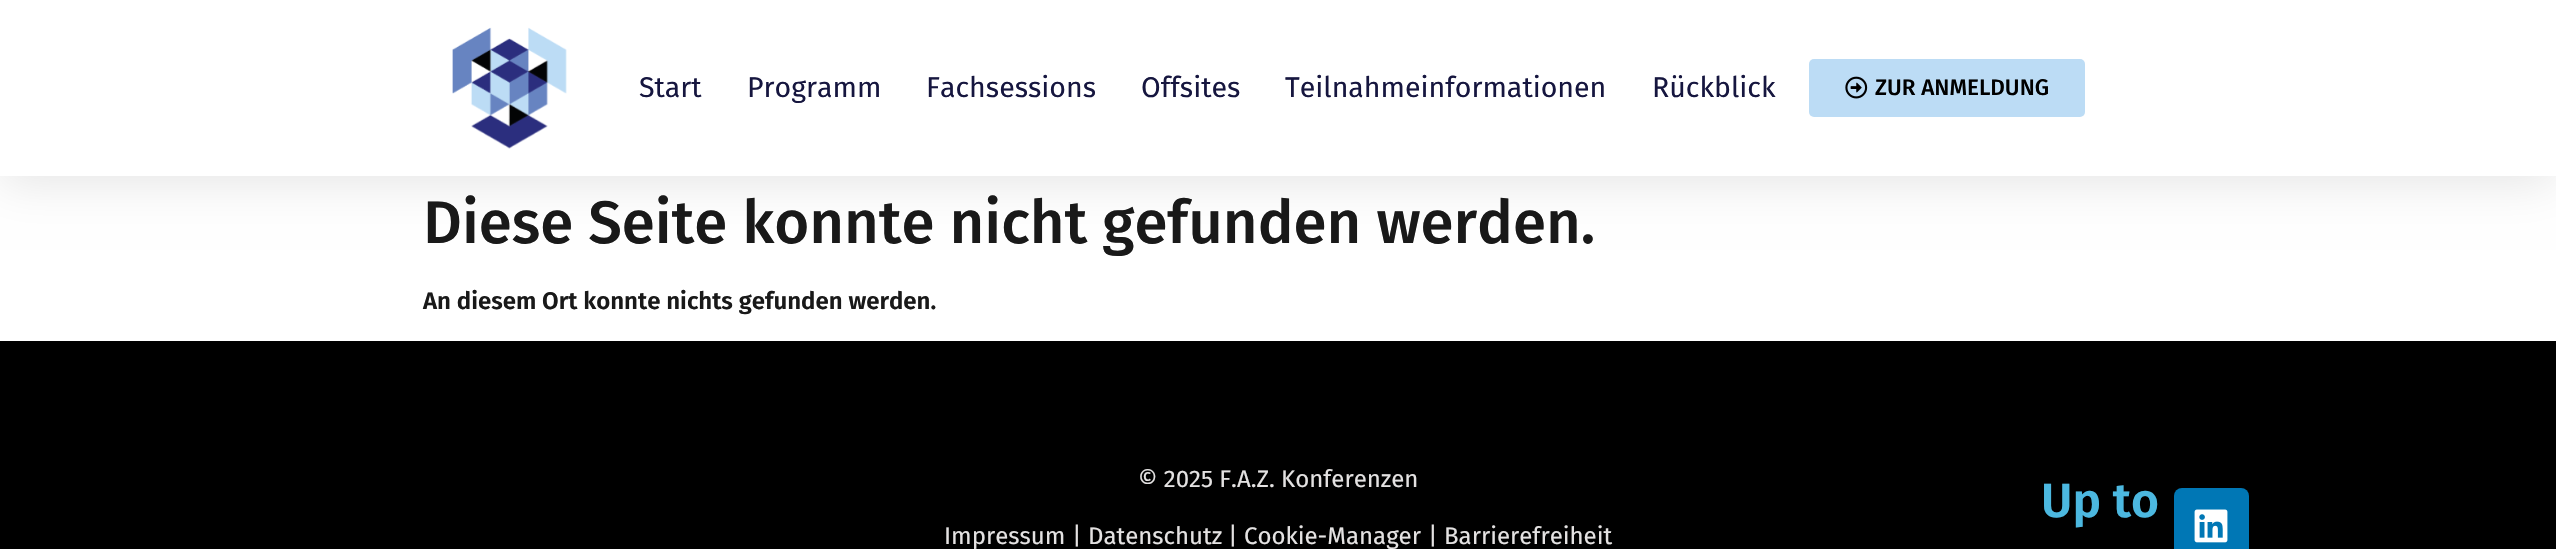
#include "include/core/SkBlurTypes.h"
#include "include/core/SkCanvas.h"
#include "include/core/SkData.h"
#include "include/core/SkFont.h"
#include "include/core/SkFontMgr.h"
#include "include/core/SkImage.h"
#include "include/core/SkMaskFilter.h"
#include "include/core/SkPaint.h"
#include "include/core/SkPathBuilder.h"
#include "include/core/SkTextBlob.h"
#include "include/effects/SkDashPathEffect.h"
#include "include/effects/SkGradientShader.h"
#include "include/utils/SkParsePath.h"

extern sk_sp<SkFontMgr> fontMgr;

static SkFont font(const char* family, int weight, float size, bool italic = false) {
    SkFontStyle style(weight, SkFontStyle::kNormal_Width,
        italic ? SkFontStyle::kItalic_Slant : SkFontStyle::kUpright_Slant);
    SkFont result(fontMgr->matchFamilyStyle(family, style), size);
    result.setSubpixel(true);
    return result;
}

static void drawLabel(SkCanvas* canvas, const char* s, float x, float y, const SkFont& font, SkColor color) {
    SkPaint ink(SkColor4f::FromColor(color));
    ink.setAntiAlias(true);
    canvas->drawString(s, x, y, font, ink);
}

static void fillRect(SkCanvas* canvas, float x, float y, float w, float h, SkColor color) {
    SkPaint ink(SkColor4f::FromColor(color));
    ink.setAntiAlias(true);
    canvas->drawRect(SkRect::MakeXYWH(x, y, w, h), ink);
}

static void fillRRect(SkCanvas* canvas, float x, float y, float w, float h, float radius, SkColor color) {
    SkPaint ink(SkColor4f::FromColor(color));
    ink.setAntiAlias(true);
    canvas->drawRoundRect(SkRect::MakeXYWH(x, y, w, h), radius, radius, ink);
}

static void drawPhoto(SkCanvas* canvas, const char* path, float x, float y, float w, float h) {
    auto image = SkImages::DeferredFromEncodedData(SkData::MakeFromFileName(path));
    canvas->drawImageRect(image, SkRect::MakeXYWH(x, y, w, h), SkSamplingOptions());
}

void draw(SkCanvas* canvas) {
    SkPaint paint;
    paint.setAntiAlias(true);
    canvas->clear(0xFFFFFFFF);
    paint.setColor(0x1A000000);
    paint.setMaskFilter(SkMaskFilter::MakeBlur(kNormal_SkBlurStyle, 22.5f));
    canvas->drawRect(SkRect::MakeXYWH(0, 8, 2556, 175), paint);
    paint.setMaskFilter(nullptr);
    fillRect(canvas, 0, 0, 2556, 176, 0xFFFFFFFF);
    drawPhoto(canvas, "assets/img1.png", 452, 27, 115, 122);
    SkFont font1 = font("Fira Sans", 400, 28.5f);
    drawLabel(canvas, "Start", 639, 97, font1, 0xFF16163F);
    drawLabel(canvas, "Programm", 747, 97, font1, 0xFF16163F);
    drawLabel(canvas, "Fachsessions", 926, 97, font1, 0xFF16163F);
    drawLabel(canvas, "Offsites", 1141, 97, font1, 0xFF16163F);
    drawLabel(canvas, "Teilnahmeinformationen", 1285, 97, font1, 0xFF16163F);
    drawLabel(canvas, "Rückblick", 1652, 97, font1, 0xFF16163F);
    fillRRect(canvas, 1809, 59, 276, 58, 5, 0xFFBCDCF5);
    drawPhoto(canvas, "assets/img2.png", 1845, 76, 23, 23);
    SkFont font2 = font("Fira Sans", 500, 22.5f);
    drawLabel(canvas, "ZUR ANMELDUNG", 1875, 95, font2, 0xFF000000);
    SkFont font3 = font("Fira Sans", 500, 60);
    drawLabel(canvas, "Diese Seite konnte nicht gefunden werden.", 423, 243, font3, 0xFF191919);
    SkFont font4 = font("Fira Sans", 600, 24);
    drawLabel(canvas, "An diesem Ort konnte nichts gefunden werden.", 423, 309, font4, 0xFF191919);
    fillRect(canvas, 0, 341, 2556, 208, 0xFF000000);
    SkFont font5 = font("Fira Sans", 400, 24);
    drawLabel(canvas, "© 2025 F.A.Z. Konferenzen", 1138, 487, font5, 0xFFE4E2E2);
    drawLabel(canvas, "Impressum", 944, 544, font5, 0xFFE4E2E2);
    drawLabel(canvas, "|", 1072, 544, font5, 0xFFE4E2E2);
    drawLabel(canvas, "Datenschutz", 1088, 544, font5, 0xFFE4E2E2);
    drawLabel(canvas, "|", 1228, 544, font5, 0xFFE4E2E2);
    drawLabel(canvas, "Cookie-Manager", 1244, 544, font5, 0xFFE4E2E2);
    drawLabel(canvas, "|", 1428, 544, font5, 0xFFE4E2E2);
    drawLabel(canvas, "Barrierefreiheit", 1444, 544, font5, 0xFFE4E2E2);
    SkFont font6 = font("Fira Sans", 600, 48);
    drawLabel(canvas, "Up to", 2041, 517, font6, 0xFF4CB8E0);
    fillRRect(canvas, 2174, 488, 75, 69, 8, 0xFF0077B5);
    drawPhoto(canvas, "assets/img3.png", 2194, 509, 34, 34);
}
